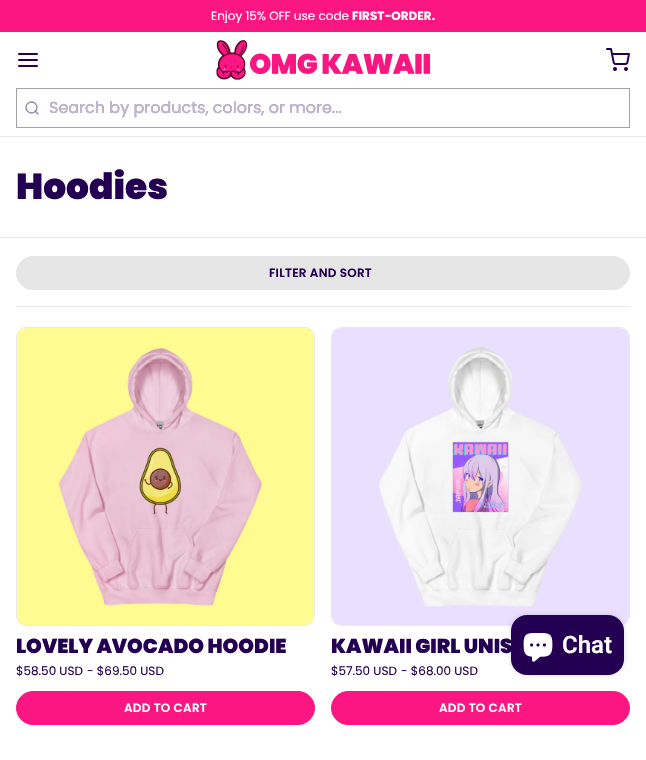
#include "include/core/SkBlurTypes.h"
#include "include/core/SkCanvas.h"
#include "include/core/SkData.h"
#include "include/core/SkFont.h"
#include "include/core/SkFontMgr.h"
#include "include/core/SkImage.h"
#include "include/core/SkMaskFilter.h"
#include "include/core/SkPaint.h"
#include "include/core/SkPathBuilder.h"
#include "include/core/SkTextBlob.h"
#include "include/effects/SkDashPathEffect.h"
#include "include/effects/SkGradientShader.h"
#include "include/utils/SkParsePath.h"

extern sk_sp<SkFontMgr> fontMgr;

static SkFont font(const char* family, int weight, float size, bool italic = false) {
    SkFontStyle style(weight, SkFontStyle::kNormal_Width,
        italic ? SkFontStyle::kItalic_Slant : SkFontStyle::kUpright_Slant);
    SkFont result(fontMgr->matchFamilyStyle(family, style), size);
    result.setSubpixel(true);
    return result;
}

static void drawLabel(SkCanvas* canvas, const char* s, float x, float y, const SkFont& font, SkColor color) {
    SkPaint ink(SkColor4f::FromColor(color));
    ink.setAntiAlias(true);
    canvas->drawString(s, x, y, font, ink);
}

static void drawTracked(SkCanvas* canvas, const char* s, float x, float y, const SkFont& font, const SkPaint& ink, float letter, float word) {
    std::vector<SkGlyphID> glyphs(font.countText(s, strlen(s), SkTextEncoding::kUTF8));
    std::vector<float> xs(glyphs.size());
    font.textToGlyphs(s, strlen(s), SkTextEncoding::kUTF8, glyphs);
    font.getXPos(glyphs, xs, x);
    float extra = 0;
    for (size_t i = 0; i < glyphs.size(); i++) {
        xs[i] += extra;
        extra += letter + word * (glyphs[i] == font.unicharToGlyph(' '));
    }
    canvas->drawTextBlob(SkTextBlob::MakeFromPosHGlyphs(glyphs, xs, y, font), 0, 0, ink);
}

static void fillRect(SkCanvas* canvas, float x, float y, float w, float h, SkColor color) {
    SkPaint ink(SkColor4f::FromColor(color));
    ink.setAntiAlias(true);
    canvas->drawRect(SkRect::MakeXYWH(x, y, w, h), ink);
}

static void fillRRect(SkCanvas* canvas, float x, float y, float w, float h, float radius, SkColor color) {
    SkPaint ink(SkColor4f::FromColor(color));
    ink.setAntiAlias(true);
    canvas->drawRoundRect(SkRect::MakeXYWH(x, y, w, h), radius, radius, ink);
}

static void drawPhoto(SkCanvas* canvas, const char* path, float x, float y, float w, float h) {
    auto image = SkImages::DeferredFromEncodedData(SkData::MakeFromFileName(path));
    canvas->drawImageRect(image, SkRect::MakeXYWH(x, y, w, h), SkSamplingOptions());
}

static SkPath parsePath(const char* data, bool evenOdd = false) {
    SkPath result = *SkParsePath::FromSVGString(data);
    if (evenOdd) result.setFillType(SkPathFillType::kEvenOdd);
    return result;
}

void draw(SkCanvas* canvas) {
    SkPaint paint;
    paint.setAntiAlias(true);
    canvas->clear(0xFFFFFFFF);
    fillRect(canvas, 0, 0, 646, 32, 0xFFFB1681);
    SkFont font1 = font("Poppins", 400, 12);
    drawLabel(canvas, "Enjoy 15% OFF use code", 211, 20, font1, 0xFFFFFFFF);
    SkFont font2 = font("Poppins", 700, 12);
    drawLabel(canvas, "FIRST-ORDER.", 352, 20, font2, 0xFFFFFFFF);
    fillRect(canvas, 0, 136, 646, 1, 0xFFE8E8E8);
    paint.setStroke(true);
    paint.setStrokeWidth(2);
    paint.setStrokeCap(SkPaint::kRound_Cap);
    paint.setStrokeJoin(SkPaint::kRound_Join);
    paint.setColor(0xFF230051);
    canvas->drawPath(parsePath("M19 60H37M19 54H37M19 66H37"), paint);
    drawPhoto(canvas, "assets/img1.png", 216, 40, 215, 40);
    drawPhoto(canvas, "assets/img2.png", 606, 48, 24, 23);
    paint.setStrokeWidth(1);
    paint.setStrokeCap(SkPaint::kButt_Cap);
    paint.setStrokeJoin(SkPaint::kMiter_Join);
    paint.setColor(0xFFA3A3A3);
    canvas->drawRect(SkRect::MakeXYWH(16.5f, 88.5f, 613, 39), paint);
    paint.setStrokeWidth(1.3f);
    paint.setColor(0xFF9180A8);
    canvas->drawCircle(31.5f, 107.5f, 5.5f, paint);
    paint.setStrokeCap(SkPaint::kRound_Cap);
    paint.setStrokeJoin(SkPaint::kRound_Join);
    canvas->drawPath(parsePath("M38 114L35 111"), paint);
    SkFont font3 = font("Poppins", 400, 16);
    drawLabel(canvas, "Search by products, colors, or more...", 49, 113, font3, 0xFF9180A8);
    drawLabel(canvas, "Search by products, colors, or more...", 49, 113, font3, 0xFFC0B6CD);
    fillRect(canvas, 0, 237, 646, 1, 0xFFE8E8E8);
    SkFont font4 = font("Poppins", 900, 36);
    drawLabel(canvas, "Hoodies", 16, 199, font4, 0xFF230051);
    fillRect(canvas, 16, 306, 614, 1, 0xFFE8E8E8);
    paint.setStroke(false);
    paint.setColor(0xFFE6E6E6);
    canvas->drawRoundRect(SkRect::MakeXYWH(16.5f, 256.5f, 613, 33), 16.5f, 16.5f, paint);
    paint.setStroke(true);
    paint.setStrokeWidth(1);
    paint.setStrokeCap(SkPaint::kButt_Cap);
    paint.setStrokeJoin(SkPaint::kMiter_Join);
    canvas->drawRoundRect(SkRect::MakeXYWH(16.5f, 256.5f, 613, 33), 16.5f, 16.5f, paint);
    SkFont font5 = font("Poppins", 600, 12);
    paint.setStroke(false);
    paint.setColor(0xFF230051);
    drawTracked(canvas, "FILTER AND SORT", 269, 277, font5, paint, 0.25f, 0);
    paint.setStroke(true);
    paint.setColor(0xFFE8E8E8);
    canvas->drawRoundRect(SkRect::MakeXYWH(16.5f, 327.5f, 298, 298), 9.5f, 9.5f, paint);
    fillRRect(canvas, 17, 328, 297, 297, 9, 0xFFFFFFFF);
    drawPhoto(canvas, "assets/img3.png", 17, 328, 297, 297);
    SkFont font6 = font("Poppins", 900, 20);
    drawLabel(canvas, "LOVELY AVOCADO HOODIE", 16, 653, font6, 0xFF230051);
    drawLabel(canvas, "$58.50 USD", 16, 675, font1, 0xFF230051);
    drawLabel(canvas, "- $69.50 USD", 87, 675, font1, 0xFF230051);
    paint.setStroke(false);
    paint.setColor(0xFFFB1681);
    canvas->drawRoundRect(SkRect::MakeXYWH(16.5f, 691.5f, 298, 33), 16.5f, 16.5f, paint);
    paint.setStroke(true);
    canvas->drawRoundRect(SkRect::MakeXYWH(16.5f, 691.5f, 298, 33), 16.5f, 16.5f, paint);
    paint.setStroke(false);
    paint.setColor(0xFFFFFFFF);
    drawTracked(canvas, "ADD TO CART", 124, 712, font5, paint, 0.25f, 0);
    paint.setStroke(true);
    paint.setColor(0xFFE8E8E8);
    canvas->drawRoundRect(SkRect::MakeXYWH(331.5f, 327.5f, 298, 298), 9.5f, 9.5f, paint);
    fillRRect(canvas, 332, 328, 297, 297, 9, 0xFFFFFFFF);
    drawPhoto(canvas, "assets/img4.png", 332, 328, 297, 297);
    drawLabel(canvas, "KAWAII GIRL UNIS", 331, 653, font6, 0xFF230051);
    drawLabel(canvas, "$57.50 USD", 331, 675, font1, 0xFF230051);
    drawLabel(canvas, "- $68.00 USD", 401, 675, font1, 0xFF230051);
    paint.setStroke(false);
    paint.setColor(0xFFFB1681);
    canvas->drawRoundRect(SkRect::MakeXYWH(331.5f, 691.5f, 298, 33), 16.5f, 16.5f, paint);
    paint.setStroke(true);
    canvas->drawRoundRect(SkRect::MakeXYWH(331.5f, 691.5f, 298, 33), 16.5f, 16.5f, paint);
    paint.setStroke(false);
    paint.setColor(0xFFFFFFFF);
    drawTracked(canvas, "ADD TO CART", 439, 712, font5, paint, 0.25f, 0);
    paint.setColor(0x26000000);
    paint.setMaskFilter(SkMaskFilter::MakeBlur(kNormal_SkBlurStyle, 2.5f));
    canvas->drawRoundRect(SkRect::MakeXYWH(511, 615, 113, 60), 16, 16, paint);
    paint.setMaskFilter(nullptr);
    fillRRect(canvas, 511, 615, 113, 60, 16, 0xFF230051);
    drawPhoto(canvas, "assets/img5.png", 523, 633, 30, 29);
    SkFont font7 = font("Roboto", 600, 24);
    drawLabel(canvas, "Chat", 562, 653, font7, 0xFFFFFFFF);
}
